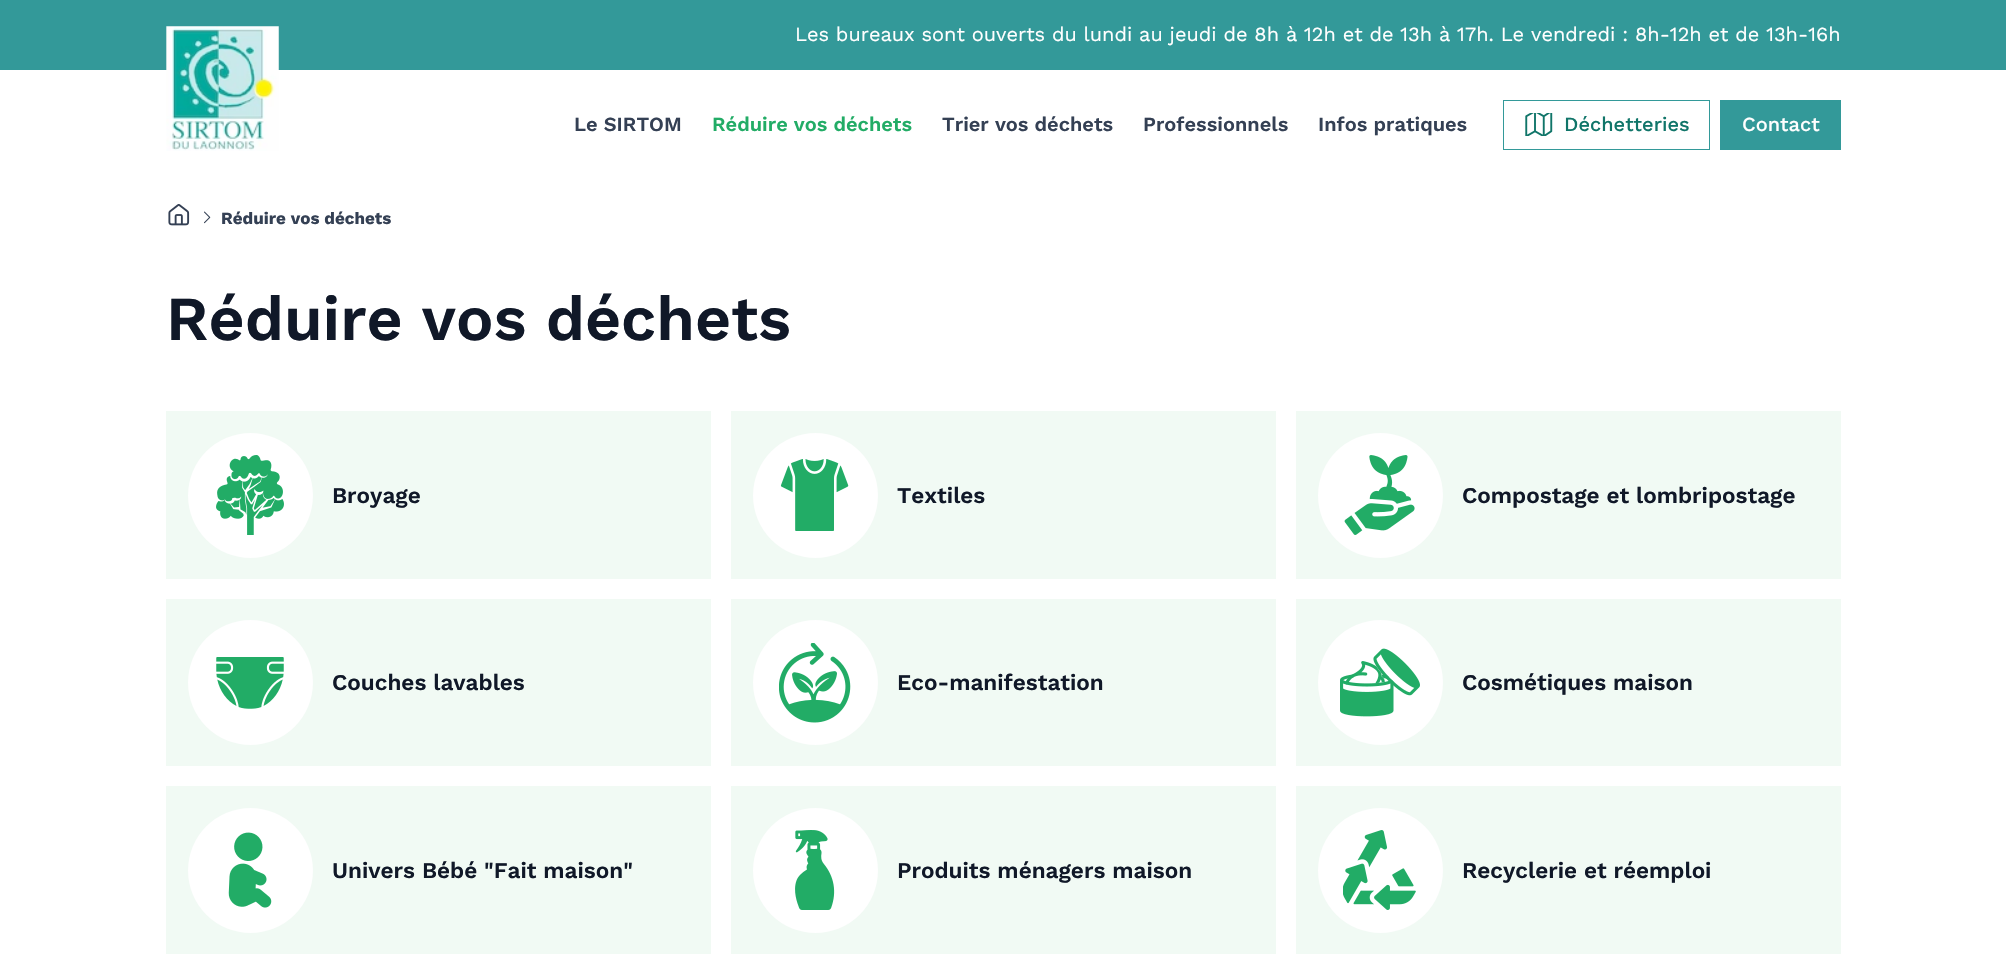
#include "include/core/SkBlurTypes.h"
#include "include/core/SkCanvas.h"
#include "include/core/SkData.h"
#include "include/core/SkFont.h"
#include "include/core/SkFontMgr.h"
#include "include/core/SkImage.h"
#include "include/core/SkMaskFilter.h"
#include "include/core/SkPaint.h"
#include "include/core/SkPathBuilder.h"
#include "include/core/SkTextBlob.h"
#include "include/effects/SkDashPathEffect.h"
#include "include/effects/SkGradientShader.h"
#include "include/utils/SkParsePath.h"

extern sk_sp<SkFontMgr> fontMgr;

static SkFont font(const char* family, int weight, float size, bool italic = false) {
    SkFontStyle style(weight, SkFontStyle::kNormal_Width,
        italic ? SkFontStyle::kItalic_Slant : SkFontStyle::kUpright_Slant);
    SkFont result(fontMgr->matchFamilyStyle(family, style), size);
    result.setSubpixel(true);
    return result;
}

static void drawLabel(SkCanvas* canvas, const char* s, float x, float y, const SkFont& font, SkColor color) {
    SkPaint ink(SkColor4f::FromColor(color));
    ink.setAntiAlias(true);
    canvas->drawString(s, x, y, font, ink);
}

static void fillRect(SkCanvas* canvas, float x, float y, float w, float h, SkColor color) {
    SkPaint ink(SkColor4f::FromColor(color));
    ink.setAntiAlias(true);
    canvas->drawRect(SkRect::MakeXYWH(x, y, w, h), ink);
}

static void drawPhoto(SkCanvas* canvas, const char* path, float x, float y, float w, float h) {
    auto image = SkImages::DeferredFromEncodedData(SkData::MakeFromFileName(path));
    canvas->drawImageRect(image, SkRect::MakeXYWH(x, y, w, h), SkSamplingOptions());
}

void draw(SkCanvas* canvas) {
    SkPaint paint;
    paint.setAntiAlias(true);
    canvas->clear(0xFFFFFFFF);
    fillRect(canvas, 0, 0, 2006, 70, 0xFF339999);
    SkFont font1 = font("Work Sans", 400, 20);
    drawLabel(canvas, "Les bureaux sont ouverts du lundi au jeudi de 8h à 12h et de 13h à 17h. Le vendredi : 8h-12h et de 13h-16h", 795, 41, font1, 0xFFFFFFFF);
    drawPhoto(canvas, "assets/img1.png", 166, 26, 113, 125);
    SkFont font2 = font("Work Sans", 600, 20);
    drawLabel(canvas, "Le SIRTOM", 574, 131, font2, 0xFF344054);
    drawLabel(canvas, "Réduire vos déchets", 712, 131, font2, 0xFF22AC66);
    drawLabel(canvas, "Trier vos déchets", 942, 131, font2, 0xFF344054);
    drawLabel(canvas, "Professionnels", 1143, 131, font2, 0xFF344054);
    drawLabel(canvas, "Infos pratiques", 1318, 131, font2, 0xFF344054);
    paint.setStroke(true);
    paint.setStrokeWidth(1);
    paint.setColor(0xFF339999);
    canvas->drawRect(SkRect::MakeXYWH(1503.5f, 100.5f, 206, 49), paint);
    drawPhoto(canvas, "assets/img2.png", 1525, 113, 28, 23);
    SkFont font3 = font("Work Sans", 500, 20);
    drawLabel(canvas, "Déchetteries", 1564, 131, font3, 0xFF107569);
    fillRect(canvas, 1720, 100, 121, 50, 0xFF339999);
    drawLabel(canvas, "Contact", 1742, 131, font3, 0xFFFFFFFF);
    drawPhoto(canvas, "assets/img3.png", 168, 204, 22, 22);
    drawPhoto(canvas, "assets/img4.png", 204, 211, 7, 13);
    SkFont font4 = font("Work Sans", 700, 17);
    drawLabel(canvas, "Réduire vos déchets", 221, 224, font4, 0xFF344054);
    SkFont font5 = font("Work Sans", 600, 62.5f);
    drawLabel(canvas, "Réduire vos déchets", 166, 340, font5, 0xFF101828);
    fillRect(canvas, 166, 411, 545, 168, 0xFFF1FAF4);
    paint.setStroke(false);
    paint.setColor(0xFFFFFFFF);
    canvas->drawCircle(250.5f, 495.5f, 62.5f, paint);
    drawPhoto(canvas, "assets/img5.png", 216, 455, 68, 80);
    SkFont font6 = font("Work Sans", 600, 22.5f);
    drawLabel(canvas, "Broyage", 332, 503, font6, 0xFF101828);
    fillRect(canvas, 731, 411, 545, 168, 0xFFF1FAF4);
    canvas->drawCircle(815.5f, 495.5f, 62.5f, paint);
    drawPhoto(canvas, "assets/img6.png", 780, 459, 69, 72);
    drawLabel(canvas, "Textiles", 897, 503, font6, 0xFF101828);
    fillRect(canvas, 1296, 411, 545, 168, 0xFFF1FAF4);
    canvas->drawCircle(1380.5f, 495.5f, 62.5f, paint);
    drawPhoto(canvas, "assets/img7.png", 1344, 455, 71, 80);
    drawLabel(canvas, "Compostage et lombripostage", 1462, 503, font6, 0xFF101828);
    fillRect(canvas, 166, 599, 545, 167, 0xFFF1FAF4);
    canvas->drawCircle(250.5f, 682.5f, 62.5f, paint);
    drawPhoto(canvas, "assets/img8.png", 216, 657, 68, 52);
    drawLabel(canvas, "Couches lavables", 332, 690, font6, 0xFF101828);
    fillRect(canvas, 731, 599, 545, 167, 0xFFF1FAF4);
    canvas->drawCircle(815.5f, 682.5f, 62.5f, paint);
    drawPhoto(canvas, "assets/img9.png", 779, 643, 72, 80);
    drawLabel(canvas, "Eco-manifestation", 897, 690, font6, 0xFF101828);
    fillRect(canvas, 1296, 599, 545, 167, 0xFFF1FAF4);
    canvas->drawCircle(1380.5f, 682.5f, 62.5f, paint);
    drawPhoto(canvas, "assets/img10.png", 1340, 648, 80, 69);
    drawLabel(canvas, "Cosmétiques maison", 1462, 690, font6, 0xFF101828);
    fillRect(canvas, 166, 786, 545, 168, 0xFFF1FAF4);
    canvas->drawCircle(250.5f, 870.5f, 62.5f, paint);
    drawPhoto(canvas, "assets/img11.png", 228, 832, 44, 76);
    drawLabel(canvas, "Univers Bébé \"Fait maison\"", 332, 878, font6, 0xFF101828);
    fillRect(canvas, 731, 786, 545, 168, 0xFFF1FAF4);
    canvas->drawCircle(815.5f, 870.5f, 62.5f, paint);
    drawPhoto(canvas, "assets/img12.png", 795, 830, 40, 80);
    drawLabel(canvas, "Produits ménagers maison", 897, 878, font6, 0xFF101828);
    fillRect(canvas, 1296, 786, 545, 168, 0xFFF1FAF4);
    canvas->drawCircle(1380.5f, 870.5f, 62.5f, paint);
    drawPhoto(canvas, "assets/img13.png", 1343, 830, 73, 80);
    drawLabel(canvas, "Recyclerie et réemploi", 1462, 878, font6, 0xFF101828);
}
